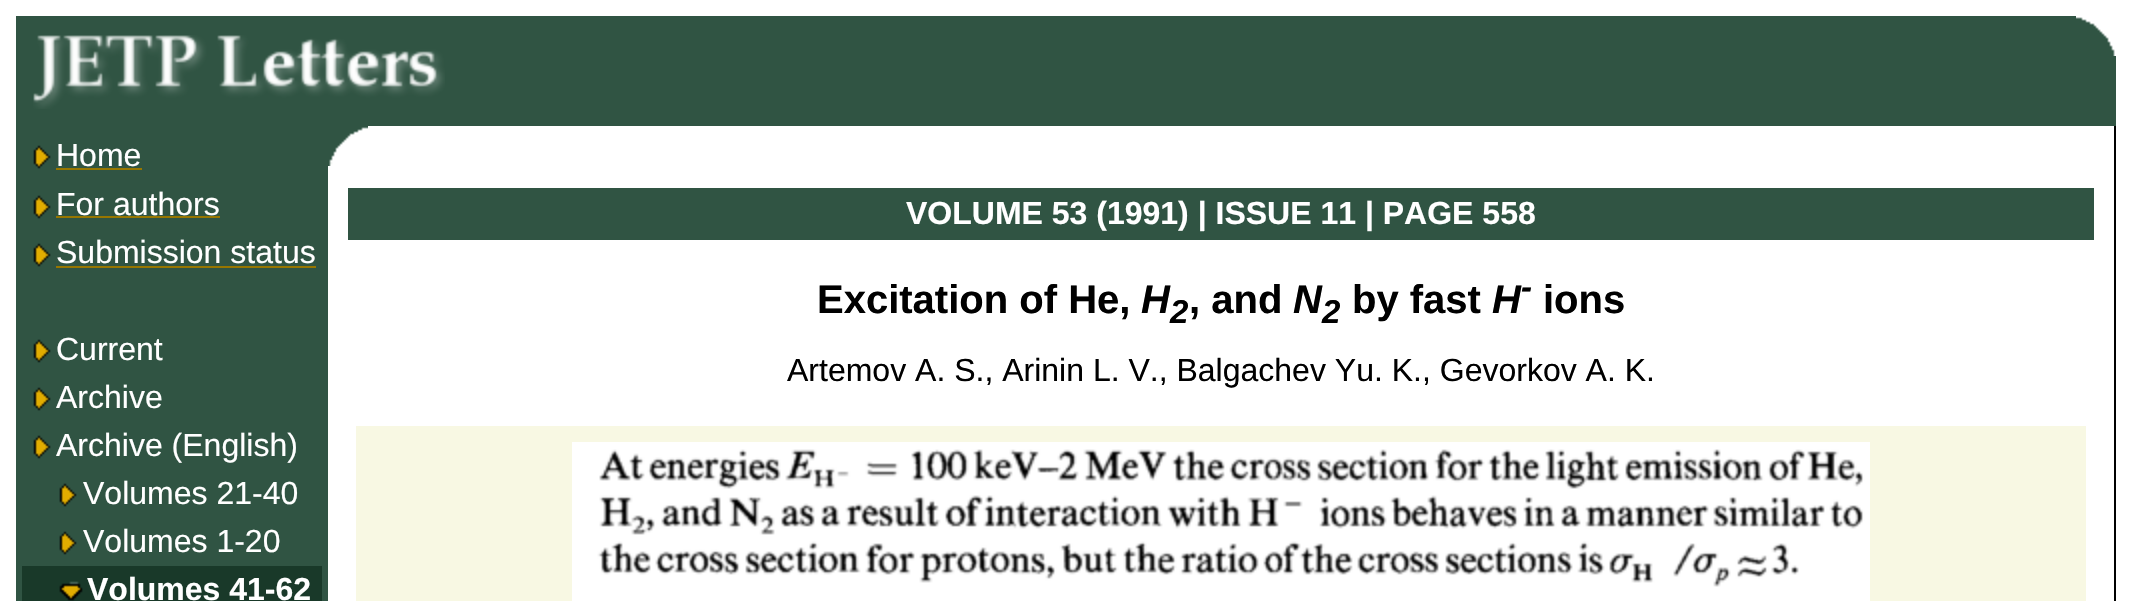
#include "include/core/SkBlurTypes.h"
#include "include/core/SkCanvas.h"
#include "include/core/SkData.h"
#include "include/core/SkFont.h"
#include "include/core/SkFontMgr.h"
#include "include/core/SkImage.h"
#include "include/core/SkMaskFilter.h"
#include "include/core/SkPaint.h"
#include "include/core/SkPathBuilder.h"
#include "include/core/SkTextBlob.h"
#include "include/effects/SkDashPathEffect.h"
#include "include/effects/SkGradientShader.h"
#include "include/utils/SkParsePath.h"

extern sk_sp<SkFontMgr> fontMgr;

static SkFont font(const char* family, int weight, float size, bool italic = false) {
    SkFontStyle style(weight, SkFontStyle::kNormal_Width,
        italic ? SkFontStyle::kItalic_Slant : SkFontStyle::kUpright_Slant);
    SkFont result(fontMgr->matchFamilyStyle(family, style), size);
    result.setSubpixel(true);
    return result;
}

static void drawLabel(SkCanvas* canvas, const char* s, float x, float y, const SkFont& font, SkColor color) {
    SkPaint ink(SkColor4f::FromColor(color));
    ink.setAntiAlias(true);
    canvas->drawString(s, x, y, font, ink);
}

static void fillRect(SkCanvas* canvas, float x, float y, float w, float h, SkColor color) {
    SkPaint ink(SkColor4f::FromColor(color));
    ink.setAntiAlias(true);
    canvas->drawRect(SkRect::MakeXYWH(x, y, w, h), ink);
}

static void drawPhoto(SkCanvas* canvas, const char* path, float x, float y, float w, float h) {
    auto image = SkImages::DeferredFromEncodedData(SkData::MakeFromFileName(path));
    canvas->drawImageRect(image, SkRect::MakeXYWH(x, y, w, h), SkSamplingOptions());
}

void draw(SkCanvas* canvas) {
    SkPaint paint;
    paint.setAntiAlias(true);
    canvas->clear(0xFFFFFFFF);
    fillRect(canvas, 16, 16, 2100, 110, 0xFF305443);
    drawPhoto(canvas, "assets/img1.png", 2076, 16, 40, 40);
    drawPhoto(canvas, "assets/img2.png", 33, 35, 412, 74);
    fillRect(canvas, 16, 126, 312, 475, 0xFF305443);
    drawPhoto(canvas, "assets/img3.png", 33, 145, 18, 24);
    SkFont font1 = font("Liberation Sans", 400, 32);
    drawLabel(canvas, "Home", 56, 166, font1, 0xFFFFFFFF);
    fillRect(canvas, 56, 168, 86, 2, 0xFF977600);
    drawPhoto(canvas, "assets/img3.png", 33, 195, 18, 24);
    drawLabel(canvas, "For authors", 56, 215, font1, 0xFFFFFFFF);
    fillRect(canvas, 56, 216, 164, 2, 0xFF977600);
    drawPhoto(canvas, "assets/img3.png", 33, 243, 18, 24);
    drawLabel(canvas, "Submission status", 56, 263, font1, 0xFFFFFFFF);
    fillRect(canvas, 56, 266, 260, 2, 0xFF977600);
    drawPhoto(canvas, "assets/img3.png", 33, 339, 18, 24);
    drawLabel(canvas, "Current", 56, 360, font1, 0xFFFFFFFF);
    drawPhoto(canvas, "assets/img3.png", 33, 387, 18, 24);
    drawLabel(canvas, "Archive", 56, 408, font1, 0xFFFFFFFF);
    drawPhoto(canvas, "assets/img3.png", 33, 435, 18, 24);
    drawLabel(canvas, "Archive (English)", 56, 456, font1, 0xFFFFFFFF);
    drawPhoto(canvas, "assets/img3.png", 59, 483, 18, 24);
    drawLabel(canvas, "Volumes 21-40", 83, 504, font1, 0xFFFFFFFF);
    drawPhoto(canvas, "assets/img3.png", 59, 531, 18, 24);
    drawLabel(canvas, "Volumes 1-20", 83, 552, font1, 0xFFFFFFFF);
    fillRect(canvas, 22, 566, 300, 35, 0xFF193929);
    drawPhoto(canvas, "assets/img4.png", 59, 581, 24, 20);
    SkFont font2 = font("Liberation Sans", 700, 32);
    drawLabel(canvas, "Volumes 41-62", 87, 600, font2, 0xFFFFFFFF);
    drawPhoto(canvas, "assets/img5.png", 328, 126, 40, 40);
    fillRect(canvas, 2114, 126, 2, 475, 0xFF000000);
    fillRect(canvas, 348, 188, 1746, 52, 0xFF305443);
    drawLabel(canvas, "VOLUME 53 (1991) | ISSUE 11 | PAGE 558", 906, 224, font2, 0xFFFFFFFF);
    SkFont font3 = font("Liberation Sans", 700, 40);
    drawLabel(canvas, "Excitation of He,", 817, 313, font3, 0xFF000000);
    SkFont font4 = font("Liberation Sans", 700, 40, true);
    drawLabel(canvas, "H", 1141, 313, font4, 0xFF000000);
    drawLabel(canvas, ", and", 1189, 313, font3, 0xFF000000);
    drawLabel(canvas, "N", 1293, 313, font4, 0xFF000000);
    drawLabel(canvas, "by fast", 1352, 313, font3, 0xFF000000);
    drawLabel(canvas, "H", 1492, 313, font4, 0xFF000000);
    SkFont font5 = font("Liberation Sans", 700, 33, true);
    drawLabel(canvas, "-", 1521, 298, font5, 0xFF000000);
    drawLabel(canvas, "ions", 1543, 313, font3, 0xFF000000);
    drawLabel(canvas, "2", 1170, 323, font5, 0xFF000000);
    drawLabel(canvas, "2", 1322, 323, font5, 0xFF000000);
    drawLabel(canvas, "Artemov A. S., Arinin L. V., Balgachev Yu. K., Gevorkov A. K.", 787, 381, font1, 0xFF000000);
    fillRect(canvas, 356, 426, 1730, 175, 0xFFF8F8E3);
    drawPhoto(canvas, "assets/img6.png", 572, 442, 1298, 159);
}
